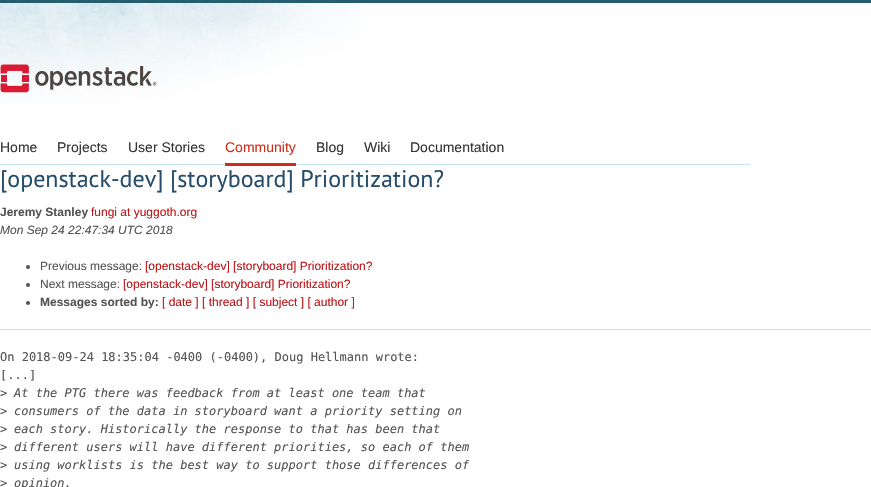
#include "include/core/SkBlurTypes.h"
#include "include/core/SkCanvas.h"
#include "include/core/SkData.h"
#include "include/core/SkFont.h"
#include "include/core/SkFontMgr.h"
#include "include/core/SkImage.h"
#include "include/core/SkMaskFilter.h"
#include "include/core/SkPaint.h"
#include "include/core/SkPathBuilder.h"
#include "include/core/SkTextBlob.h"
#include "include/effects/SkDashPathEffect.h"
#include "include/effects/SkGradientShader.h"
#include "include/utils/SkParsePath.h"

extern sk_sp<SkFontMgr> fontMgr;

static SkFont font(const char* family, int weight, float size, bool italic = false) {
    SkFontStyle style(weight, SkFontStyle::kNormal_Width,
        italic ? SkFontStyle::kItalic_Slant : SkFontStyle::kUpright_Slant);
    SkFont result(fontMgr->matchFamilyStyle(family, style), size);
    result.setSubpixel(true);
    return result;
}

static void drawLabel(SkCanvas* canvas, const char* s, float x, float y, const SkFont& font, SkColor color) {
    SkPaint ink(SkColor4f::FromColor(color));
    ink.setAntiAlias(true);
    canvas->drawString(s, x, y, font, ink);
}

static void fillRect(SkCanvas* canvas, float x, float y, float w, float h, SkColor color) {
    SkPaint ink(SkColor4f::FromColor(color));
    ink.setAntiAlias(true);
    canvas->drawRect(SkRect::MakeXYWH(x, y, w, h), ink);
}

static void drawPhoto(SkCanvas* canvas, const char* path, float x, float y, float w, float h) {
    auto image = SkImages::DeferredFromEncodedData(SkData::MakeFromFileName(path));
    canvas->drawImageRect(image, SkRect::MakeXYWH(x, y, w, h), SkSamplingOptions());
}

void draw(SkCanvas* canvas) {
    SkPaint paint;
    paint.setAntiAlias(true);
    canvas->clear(0xFFFFFFFF);
    drawPhoto(canvas, "assets/img1.png", 0, 3, 361, 101);
    fillRect(canvas, 0, 0, 871, 3, 0xFF255E6E);
    drawPhoto(canvas, "assets/img2.png", 0, 64, 157, 29);
    fillRect(canvas, 0, 164, 750, 1, 0xFFC5E2EA);
    SkFont font1 = font("Liberation Sans", 400, 14);
    drawLabel(canvas, "Home", 0, 152, font1, 0xFF353535);
    drawLabel(canvas, "Projects", 57, 152, font1, 0xFF353535);
    drawLabel(canvas, "User Stories", 128, 152, font1, 0xFF353535);
    fillRect(canvas, 225, 163, 71, 3, 0xFFCF2F19);
    drawLabel(canvas, "Community", 225, 152, font1, 0xFFCF2F19);
    drawLabel(canvas, "Blog", 316, 152, font1, 0xFF353535);
    drawLabel(canvas, "Wiki", 364, 152, font1, 0xFF353535);
    drawLabel(canvas, "Documentation", 410, 152, font1, 0xFF353535);
    SkFont font2 = font("PT Sans", 400, 24);
    drawLabel(canvas, "[openstack-dev] [storyboard] Prioritization?", 0, 187, font2, 0xFF264D69);
    SkFont font3 = font("Liberation Sans", 700, 12);
    drawLabel(canvas, "Jeremy Stanley", 0, 216, font3, 0xFF535353);
    SkFont font4 = font("Liberation Sans", 400, 12);
    drawLabel(canvas, "fungi at yuggoth.org", 91, 216, font4, 0xFFBC1518);
    SkFont font5 = font("Liberation Sans", 400, 12, true);
    drawLabel(canvas, "Mon Sep 24 22:47:34 UTC 2018", 0, 234, font5, 0xFF535353);
    paint.setColor(0xFF535353);
    canvas->drawCircle(28, 267, 2, paint);
    drawLabel(canvas, "Previous message:", 40, 270, font4, 0xFF535353);
    drawLabel(canvas, "[openstack-dev] [storyboard] Prioritization?", 145, 270, font4, 0xFFBC1518);
    canvas->drawCircle(28, 285, 2, paint);
    drawLabel(canvas, "Next message:", 40, 288, font4, 0xFF535353);
    drawLabel(canvas, "[openstack-dev] [storyboard] Prioritization?", 123, 288, font4, 0xFFBC1518);
    canvas->drawCircle(28, 303, 2, paint);
    drawLabel(canvas, "Messages sorted by:", 40, 306, font3, 0xFF535353);
    drawLabel(canvas, "[ date ] [ thread ] [ subject ] [ author ]", 162, 306, font4, 0xFFBC1518);
    fillRect(canvas, 0, 329, 871, 1, 0xFFDDDDDD);
    SkFont font6 = font("DejaVu Sans Mono", 400, 12);
    drawLabel(canvas, "On 2018-09-24 18:35:04 -0400 (-0400), Doug Hellmann wrote:", 0, 361, font6, 0xFF535353);
    drawLabel(canvas, "[...]", 0, 379, font6, 0xFF535353);
    drawLabel(canvas, ">", 0, 397, font6, 0xFF535353);
    SkFont font7 = font("DejaVu Sans Mono", 400, 12, true);
    drawLabel(canvas, "At the PTG there was feedback from at least one team that", 14, 397, font7, 0xFF535353);
    drawLabel(canvas, ">", 0, 415, font6, 0xFF535353);
    drawLabel(canvas, "consumers of the data in storyboard want a priority setting on", 14, 415, font7, 0xFF535353);
    drawLabel(canvas, ">", 0, 433, font6, 0xFF535353);
    drawLabel(canvas, "each story. Historically the response to that has been that", 14, 433, font7, 0xFF535353);
    drawLabel(canvas, ">", 0, 451, font6, 0xFF535353);
    drawLabel(canvas, "different users will have different priorities, so each of them", 14, 451, font7, 0xFF535353);
    drawLabel(canvas, ">", 0, 469, font6, 0xFF535353);
    drawLabel(canvas, "using worklists is the best way to support those differences of", 14, 469, font7, 0xFF535353);
    drawLabel(canvas, ">", 0, 487, font6, 0xFF535353);
    drawLabel(canvas, "opinion.", 14, 487, font7, 0xFF535353);
}
